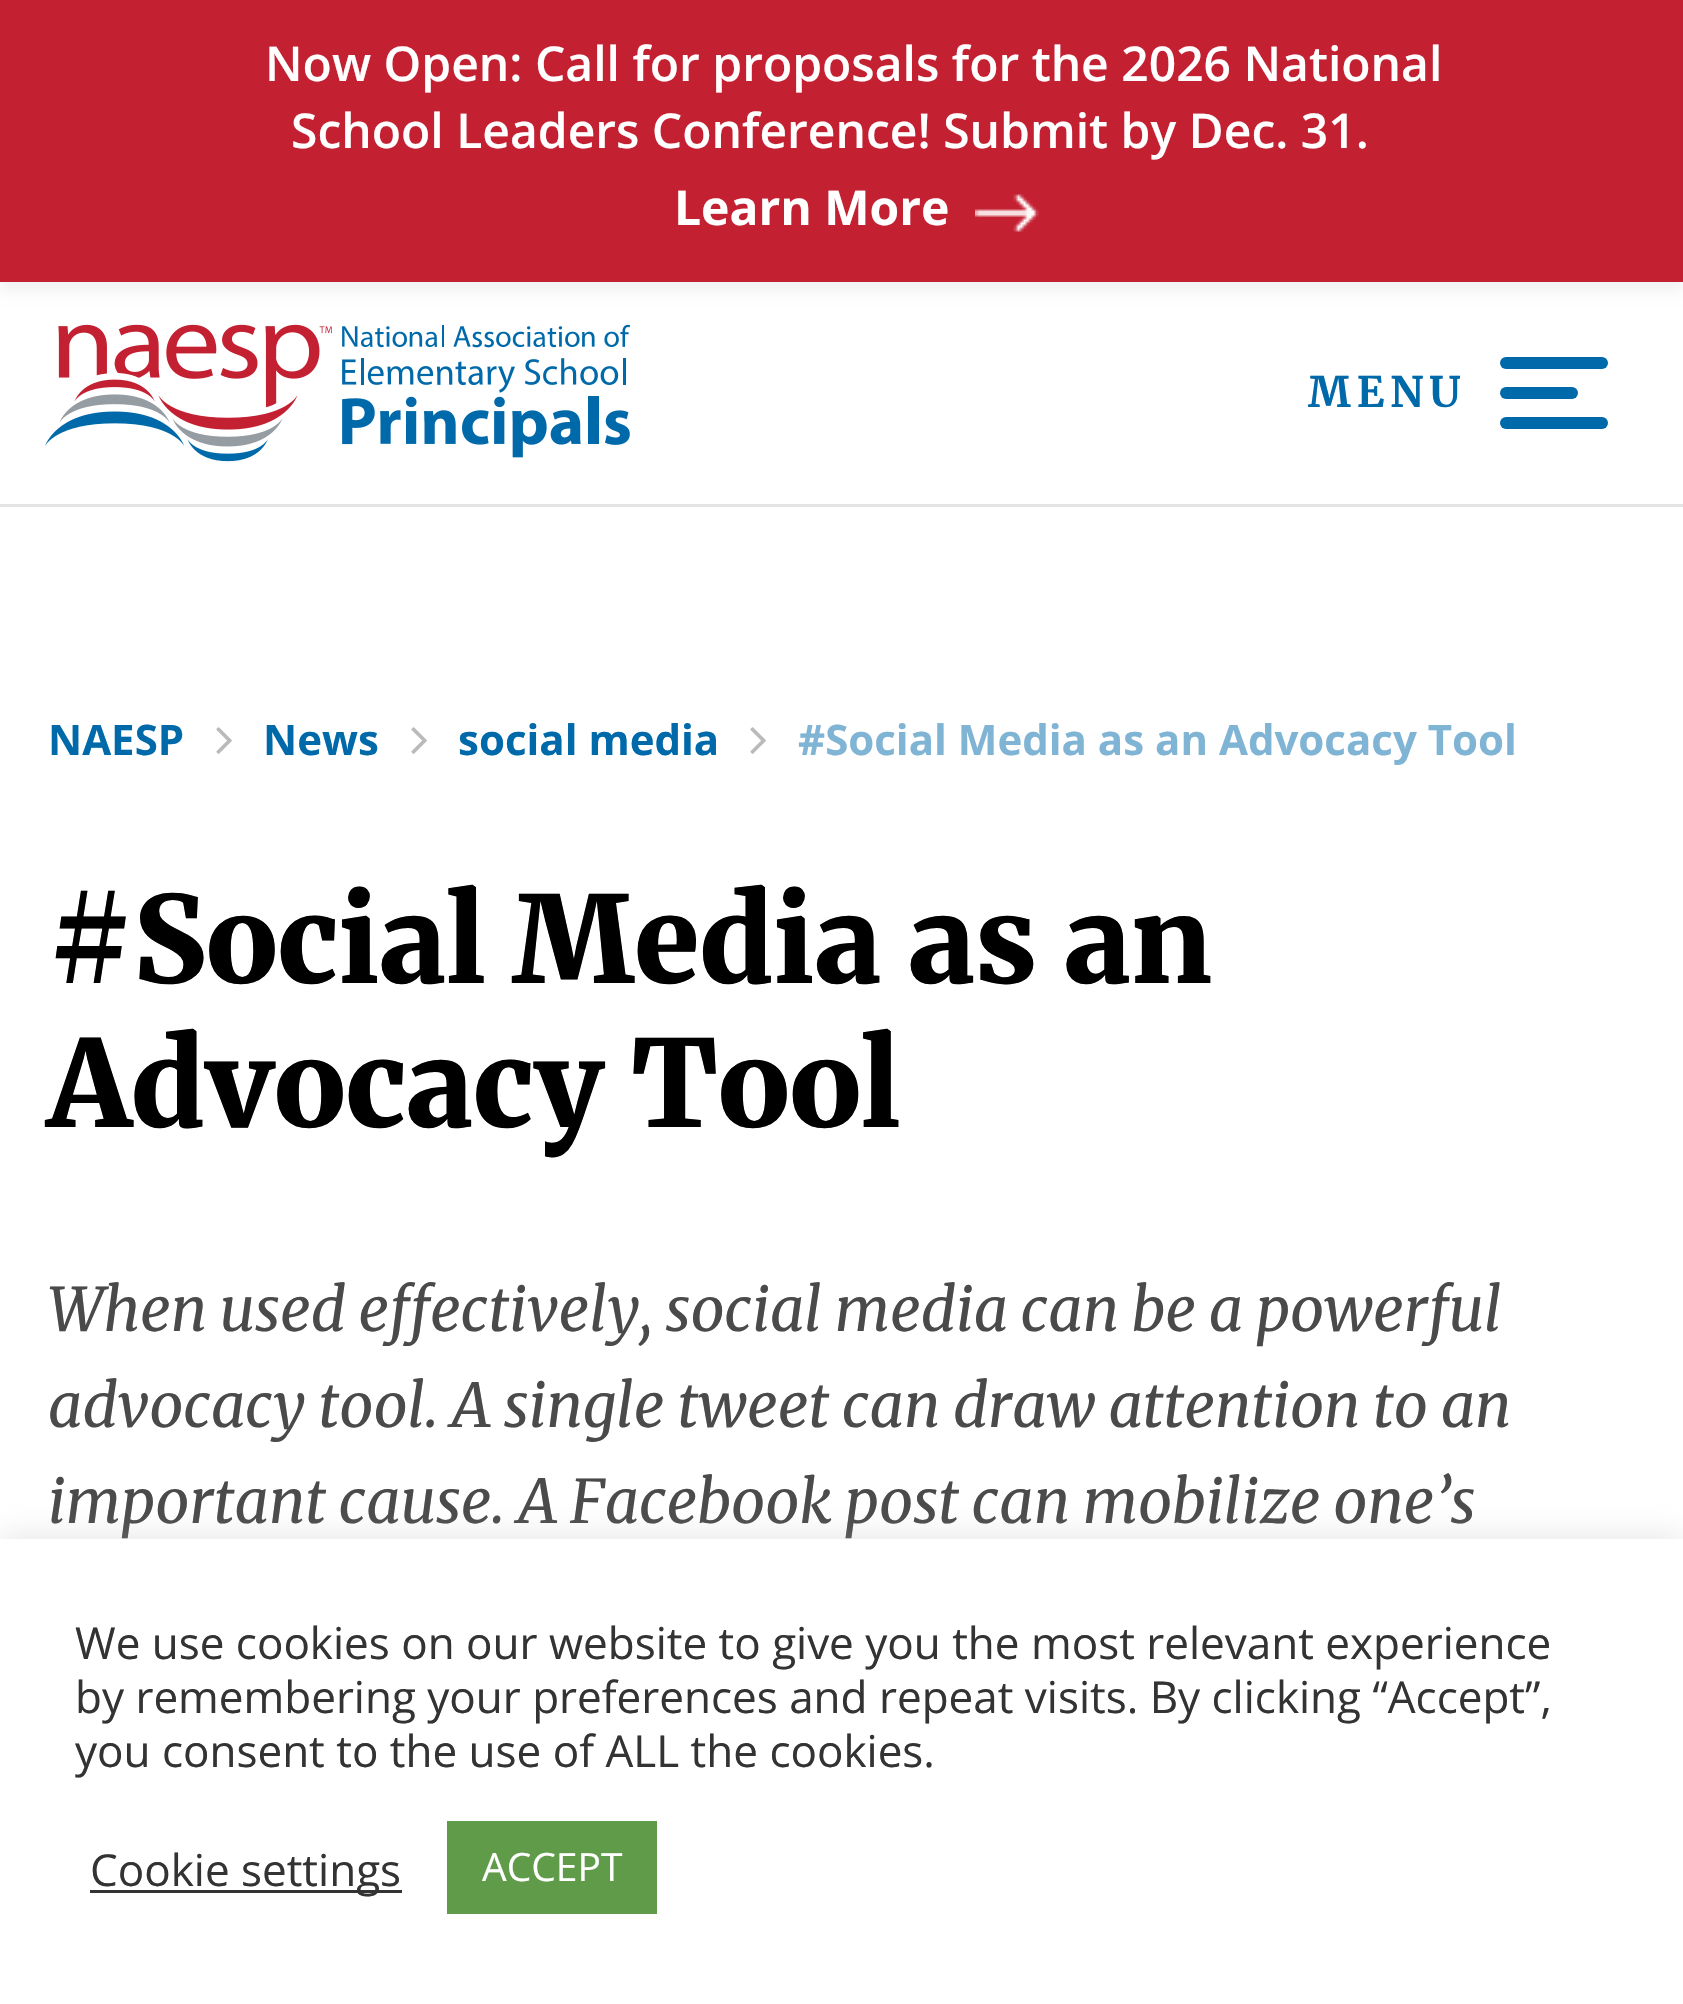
#include "include/core/SkBlurTypes.h"
#include "include/core/SkCanvas.h"
#include "include/core/SkData.h"
#include "include/core/SkFont.h"
#include "include/core/SkFontMgr.h"
#include "include/core/SkImage.h"
#include "include/core/SkMaskFilter.h"
#include "include/core/SkPaint.h"
#include "include/core/SkPathBuilder.h"
#include "include/core/SkTextBlob.h"
#include "include/effects/SkDashPathEffect.h"
#include "include/effects/SkGradientShader.h"
#include "include/utils/SkParsePath.h"

extern sk_sp<SkFontMgr> fontMgr;

static SkFont font(const char* family, int weight, float size, bool italic = false) {
    SkFontStyle style(weight, SkFontStyle::kNormal_Width,
        italic ? SkFontStyle::kItalic_Slant : SkFontStyle::kUpright_Slant);
    SkFont result(fontMgr->matchFamilyStyle(family, style), size);
    result.setSubpixel(true);
    return result;
}

static void drawLabel(SkCanvas* canvas, const char* s, float x, float y, const SkFont& font, SkColor color) {
    SkPaint ink(SkColor4f::FromColor(color));
    ink.setAntiAlias(true);
    canvas->drawString(s, x, y, font, ink);
}

static void drawTracked(SkCanvas* canvas, const char* s, float x, float y, const SkFont& font, const SkPaint& ink, float letter, float word) {
    std::vector<SkGlyphID> glyphs(font.countText(s, strlen(s), SkTextEncoding::kUTF8));
    std::vector<float> xs(glyphs.size());
    font.textToGlyphs(s, strlen(s), SkTextEncoding::kUTF8, glyphs);
    font.getXPos(glyphs, xs, x);
    float extra = 0;
    for (size_t i = 0; i < glyphs.size(); i++) {
        xs[i] += extra;
        extra += letter + word * (glyphs[i] == font.unicharToGlyph(' '));
    }
    canvas->drawTextBlob(SkTextBlob::MakeFromPosHGlyphs(glyphs, xs, y, font), 0, 0, ink);
}

static void fillRect(SkCanvas* canvas, float x, float y, float w, float h, SkColor color) {
    SkPaint ink(SkColor4f::FromColor(color));
    ink.setAntiAlias(true);
    canvas->drawRect(SkRect::MakeXYWH(x, y, w, h), ink);
}

static void fillRRect(SkCanvas* canvas, float x, float y, float w, float h, float radius, SkColor color) {
    SkPaint ink(SkColor4f::FromColor(color));
    ink.setAntiAlias(true);
    canvas->drawRoundRect(SkRect::MakeXYWH(x, y, w, h), radius, radius, ink);
}

static void drawPhoto(SkCanvas* canvas, const char* path, float x, float y, float w, float h) {
    auto image = SkImages::DeferredFromEncodedData(SkData::MakeFromFileName(path));
    canvas->drawImageRect(image, SkRect::MakeXYWH(x, y, w, h), SkSamplingOptions());
}

void draw(SkCanvas* canvas) {
    SkPaint paint;
    paint.setAntiAlias(true);
    canvas->clear(0xFFFFFFFF);
    paint.setColor(0x0D000000);
    paint.setMaskFilter(SkMaskFilter::MakeBlur(kNormal_SkBlurStyle, 6));
    canvas->drawRect(SkRect::MakeXYWH(0, 9, 1683, 282), paint);
    paint.setMaskFilter(nullptr);
    fillRect(canvas, 0, 0, 1683, 282, 0xFFC32032);
    SkFont font1 = font("Open Sans", 600, 48);
    drawLabel(canvas, "Now Open: Call for proposals for the 2026 National", 265, 81, font1, 0xFFFFFFFF);
    drawLabel(canvas, "School Leaders Conference! Submit by Dec. 31.", 291, 148, font1, 0xFFFFFFFF);
    SkFont font2 = font("Open Sans", 700, 48);
    drawLabel(canvas, "Learn More", 674, 225, font2, 0xFFFFFFFF);
    drawPhoto(canvas, "assets/img1.png", 975, 194, 64, 38);
    fillRect(canvas, 0, 504, 1683, 3, 0xFFE4E4E4);
    drawPhoto(canvas, "assets/img2.png", 45, 324, 585, 138);
    SkFont font3 = font("Merriweather", 700, 42);
    paint.setColor(0xFF0069AA);
    drawTracked(canvas, "MENU", 1308, 407, font3, paint, 6, 0);
    fillRRect(canvas, 1500, 387, 78, 12, 6, 0xFF0069AA);
    fillRRect(canvas, 1500, 357, 108, 12, 6, 0xFF0069AA);
    fillRRect(canvas, 1500, 417, 108, 12, 6, 0xFF0069AA);
    SkFont font4 = font("Open Sans", 700, 42);
    drawLabel(canvas, "NAESP", 48, 755, font4, 0xFF0069AA);
    drawPhoto(canvas, "assets/img3.png", 216, 727, 16, 27);
    drawLabel(canvas, "News", 263, 755, font4, 0xFF0069AA);
    drawPhoto(canvas, "assets/img3.png", 411, 727, 16, 27);
    drawLabel(canvas, "social media", 458, 755, font4, 0xFF0069AA);
    drawPhoto(canvas, "assets/img3.png", 750, 727, 16, 27);
    drawLabel(canvas, "#Social Media as an Advocacy Tool", 798, 755, font4, 0xFF80B4D5);
    SkFont font5 = font("Merriweather", 900, 120);
    drawLabel(canvas, "#Social Media as an", 48, 983, font5, 0xFF000000);
    drawLabel(canvas, "Advocacy Tool", 48, 1127, font5, 0xFF000000);
    SkFont font6 = font("Merriweather", 400, 60, true);
    paint.setColor(0xFF4A4A4A);
    drawTracked(canvas, "When used effectively, social media can be a powerful", 48, 1331, font6, paint, 0, -0.5f);
    drawTracked(canvas, "advocacy tool. A single tweet can draw attention to an", 48, 1427, font6, paint, 0, -0.5f);
    drawTracked(canvas, "important cause. A Facebook post can mobilize one’s", 48, 1523, font6, paint, 0, -0.5f);
    paint.setColor(0x4DACABAB);
    paint.setMaskFilter(SkMaskFilter::MakeBlur(kNormal_SkBlurStyle, 15));
    canvas->drawRect(SkRect::MakeXYWH(0, 1536, 1683, 465), paint);
    paint.setMaskFilter(nullptr);
    fillRect(canvas, 0, 1539, 1683, 465, 0xFFFFFFFF);
    SkFont font7 = font("Open Sans", 400, 44);
    drawLabel(canvas, "We use cookies on our website to give you the most relevant experience", 75, 1659, font7, 0xFF333333);
    drawLabel(canvas, "by remembering your preferences and repeat visits. By clicking “Accept”,", 75, 1713, font7, 0xFF333333);
    drawLabel(canvas, "you consent to the use of ALL the cookies.", 75, 1767, font7, 0xFF333333);
    fillRect(canvas, 90, 1890, 312, 3, 0xFF333333);
    drawLabel(canvas, "Cookie settings", 90, 1886, font7, 0xFF333333);
    fillRect(canvas, 447, 1821, 210, 93, 0xFF5F9B49);
    SkFont font8 = font("Open Sans", 400, 39);
    drawLabel(canvas, "ACCEPT", 482, 1881, font8, 0xFFFFFFFF);
}
